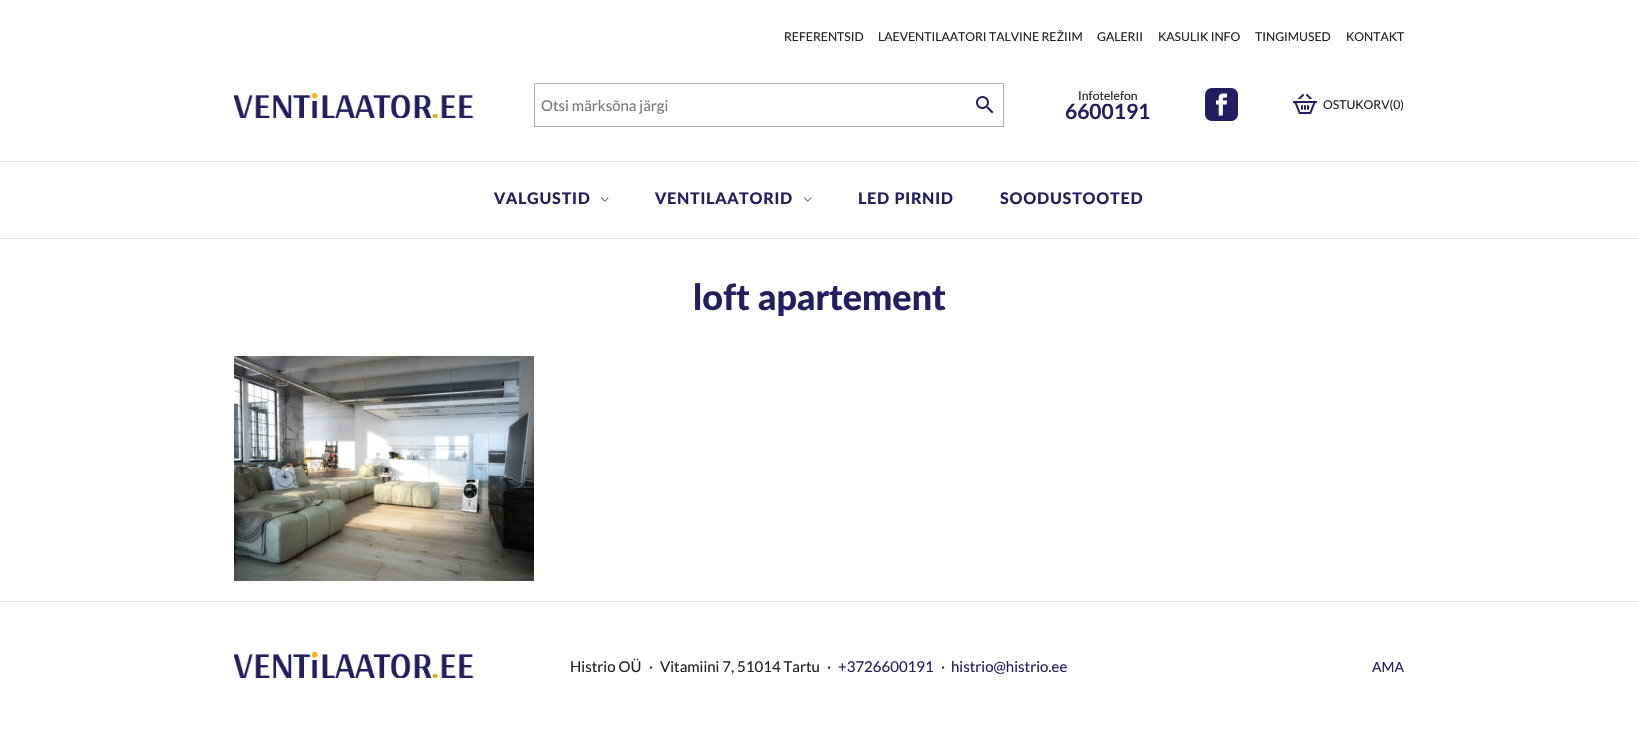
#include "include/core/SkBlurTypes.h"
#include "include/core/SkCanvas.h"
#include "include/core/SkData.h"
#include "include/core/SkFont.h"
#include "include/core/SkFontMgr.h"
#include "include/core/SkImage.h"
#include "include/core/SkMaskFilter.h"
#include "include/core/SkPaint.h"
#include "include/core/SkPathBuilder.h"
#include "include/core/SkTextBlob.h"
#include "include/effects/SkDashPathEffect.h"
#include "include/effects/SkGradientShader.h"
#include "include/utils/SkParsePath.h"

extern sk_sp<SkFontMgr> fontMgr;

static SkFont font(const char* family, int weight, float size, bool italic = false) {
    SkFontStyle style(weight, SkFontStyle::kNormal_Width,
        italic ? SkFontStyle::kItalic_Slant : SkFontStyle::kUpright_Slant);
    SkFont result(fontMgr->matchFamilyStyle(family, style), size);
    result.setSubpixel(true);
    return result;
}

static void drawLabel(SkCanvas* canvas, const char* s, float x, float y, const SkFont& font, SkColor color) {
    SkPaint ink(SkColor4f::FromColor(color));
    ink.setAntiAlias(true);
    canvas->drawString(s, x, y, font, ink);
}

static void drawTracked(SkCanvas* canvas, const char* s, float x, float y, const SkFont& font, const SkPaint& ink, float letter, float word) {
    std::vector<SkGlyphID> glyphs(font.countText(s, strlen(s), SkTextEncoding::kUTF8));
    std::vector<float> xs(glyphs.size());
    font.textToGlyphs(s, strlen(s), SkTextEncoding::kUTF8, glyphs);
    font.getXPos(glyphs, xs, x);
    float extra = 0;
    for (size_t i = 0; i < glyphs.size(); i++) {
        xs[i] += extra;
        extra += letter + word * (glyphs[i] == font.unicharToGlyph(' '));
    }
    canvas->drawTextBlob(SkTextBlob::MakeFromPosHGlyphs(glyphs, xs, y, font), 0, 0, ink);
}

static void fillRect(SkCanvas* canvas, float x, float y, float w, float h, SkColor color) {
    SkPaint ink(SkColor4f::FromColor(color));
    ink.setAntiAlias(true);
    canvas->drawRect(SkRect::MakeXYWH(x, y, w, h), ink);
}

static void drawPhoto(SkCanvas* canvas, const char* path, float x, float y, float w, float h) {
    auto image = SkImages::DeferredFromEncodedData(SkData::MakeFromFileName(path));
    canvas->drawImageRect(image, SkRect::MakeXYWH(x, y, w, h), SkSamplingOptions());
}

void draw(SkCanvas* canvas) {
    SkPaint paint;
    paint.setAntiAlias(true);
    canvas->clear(0xFFFFFFFF);
    SkFont font1 = font("Lato", 400, 12.2f);
    drawLabel(canvas, "REFERENTSID", 784, 41, font1, 0xFF231F20);
    drawLabel(canvas, "LAEVENTILAATORI TALVINE REŽIIM", 878, 41, font1, 0xFF231F20);
    drawLabel(canvas, "GALERII", 1097, 41, font1, 0xFF231F20);
    drawLabel(canvas, "KASULIK INFO", 1158, 41, font1, 0xFF231F20);
    drawLabel(canvas, "TINGIMUSED", 1255, 41, font1, 0xFF231F20);
    drawLabel(canvas, "KONTAKT", 1346, 41, font1, 0xFF231F20);
    drawPhoto(canvas, "assets/img1.png", 234, 93, 240, 25);
    paint.setStroke(true);
    paint.setStrokeWidth(1);
    paint.setColor(0xFFB1B1B1);
    canvas->drawRect(SkRect::MakeXYWH(534.5f, 83.5f, 469, 43), paint);
    SkFont font2 = font("Lato", 400, 15);
    drawLabel(canvas, "Otsi märksõna järgi", 541, 111, font2, 0xFF757575);
    drawPhoto(canvas, "assets/img2.png", 976, 96, 18, 18);
    drawLabel(canvas, "Infotelefon", 1078, 100, font1, 0xFF231F20);
    SkFont font3 = font("Lato", 700, 21);
    drawLabel(canvas, "6600191", 1065, 119, font3, 0xFF231E60);
    drawPhoto(canvas, "assets/img3.png", 1205, 88, 33, 33);
    drawPhoto(canvas, "assets/img4.png", 1293, 94, 24, 20);
    drawLabel(canvas, "OSTUKORV(0)", 1323, 109, font1, 0xFF231F20);
    fillRect(canvas, 0, 161, 1638, 1, 0xFFE8E8E8);
    SkFont font4 = font("Lato", 900, 16);
    paint.setStroke(false);
    paint.setColor(0xFF231E60);
    drawTracked(canvas, "VALGUSTID", 494, 204, font4, paint, 0.75f, 0);
    drawPhoto(canvas, "assets/img5.png", 601, 197, 8, 5);
    drawTracked(canvas, "VENTILAATORID", 655, 204, font4, paint, 0.75f, 0);
    drawPhoto(canvas, "assets/img5.png", 804, 197, 8, 5);
    drawTracked(canvas, "LED PIRNID", 858, 204, font4, paint, 0.75f, 0);
    drawTracked(canvas, "SOODUSTOOTED", 1000, 204, font4, paint, 0.75f, 0);
    fillRect(canvas, 0, 238, 1638, 1, 0xFFE8E8E8);
    SkFont font5 = font("Lato", 900, 36);
    drawLabel(canvas, "loft apartement", 693, 310, font5, 0xFF231E60);
    drawPhoto(canvas, "assets/img6.png", 234, 356, 300, 225);
    fillRect(canvas, 0, 601, 1638, 1, 0xFFE8E8E8);
    drawPhoto(canvas, "assets/img7.png", 234, 652, 240, 26);
    drawLabel(canvas, "Histrio OÜ", 570, 672, font2, 0xFF231F20);
    drawLabel(canvas, "·", 649, 672, font2, 0xFF231F20);
    drawLabel(canvas, "Vitamiini 7, 51014 Tartu", 660, 672, font2, 0xFF231F20);
    drawLabel(canvas, "·", 827, 672, font2, 0xFF231F20);
    drawLabel(canvas, "+3726600191", 838, 672, font2, 0xFF231E60);
    drawLabel(canvas, "·", 941, 672, font2, 0xFF231F20);
    drawLabel(canvas, "histrio@histrio.ee", 951, 672, font2, 0xFF231E60);
    SkFont font6 = font("Lato", 400, 14);
    drawLabel(canvas, "AMA", 1372, 672, font6, 0xFF231E60);
}
